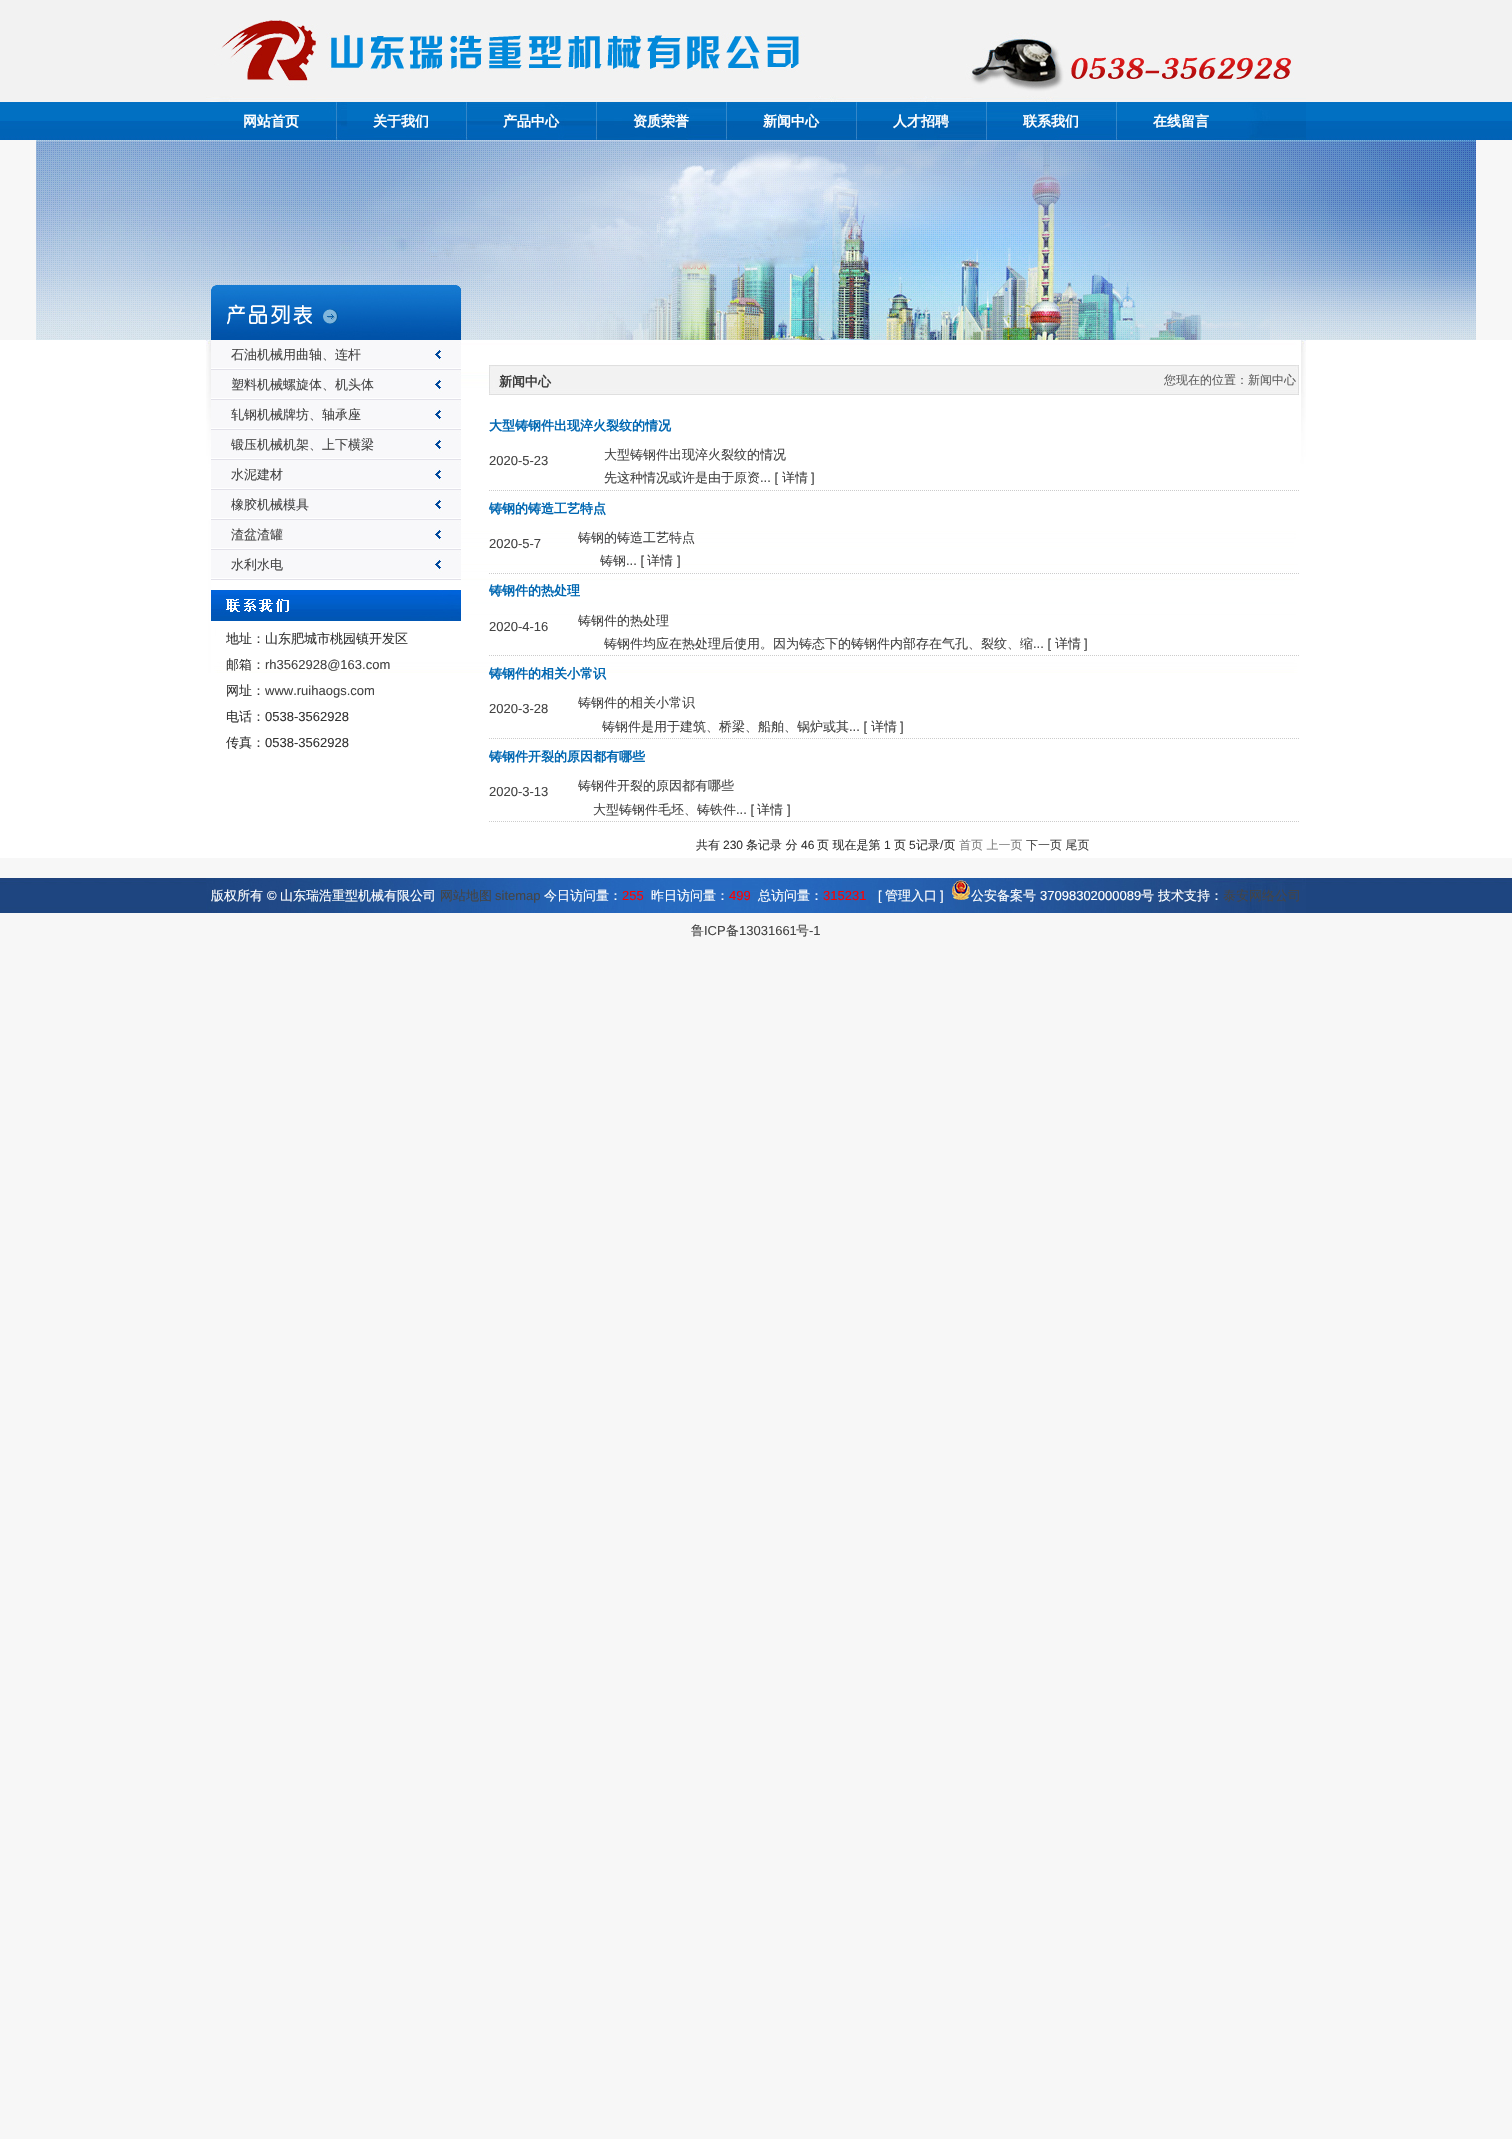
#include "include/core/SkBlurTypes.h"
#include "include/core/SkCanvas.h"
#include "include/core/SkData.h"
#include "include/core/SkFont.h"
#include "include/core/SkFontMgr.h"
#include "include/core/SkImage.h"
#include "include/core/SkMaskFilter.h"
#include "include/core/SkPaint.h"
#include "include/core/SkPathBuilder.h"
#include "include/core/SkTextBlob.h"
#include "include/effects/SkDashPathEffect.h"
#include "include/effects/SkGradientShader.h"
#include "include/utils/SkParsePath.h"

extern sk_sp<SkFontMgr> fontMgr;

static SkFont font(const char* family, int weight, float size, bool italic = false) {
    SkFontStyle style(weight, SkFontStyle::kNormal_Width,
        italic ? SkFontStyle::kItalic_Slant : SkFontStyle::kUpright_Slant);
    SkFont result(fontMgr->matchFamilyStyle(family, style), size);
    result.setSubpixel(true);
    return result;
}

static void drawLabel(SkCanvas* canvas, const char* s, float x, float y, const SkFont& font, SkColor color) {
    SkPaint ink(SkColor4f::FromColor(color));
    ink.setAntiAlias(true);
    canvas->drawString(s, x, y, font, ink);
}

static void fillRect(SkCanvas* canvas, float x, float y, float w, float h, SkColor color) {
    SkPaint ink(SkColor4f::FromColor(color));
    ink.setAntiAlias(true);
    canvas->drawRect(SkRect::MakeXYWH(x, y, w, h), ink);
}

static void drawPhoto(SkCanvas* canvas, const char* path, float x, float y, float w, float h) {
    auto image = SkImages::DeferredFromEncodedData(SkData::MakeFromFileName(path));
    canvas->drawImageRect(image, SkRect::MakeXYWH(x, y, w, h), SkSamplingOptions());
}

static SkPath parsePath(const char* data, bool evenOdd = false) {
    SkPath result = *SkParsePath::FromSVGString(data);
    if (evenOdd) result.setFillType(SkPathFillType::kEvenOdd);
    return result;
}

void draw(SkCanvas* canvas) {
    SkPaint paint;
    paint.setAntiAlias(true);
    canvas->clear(0xFFF7F7F7);
    drawPhoto(canvas, "assets/img1.png", 0, 0, 1512, 140);
    drawPhoto(canvas, "assets/img2.png", 206, 20, 1100, 82);
    drawPhoto(canvas, "assets/img3.png", 208, 102, 1098, 38);
    SkFont font1 = font("WenQuanYi Zen Hei", 700, 14);
    drawLabel(canvas, "网站首页", 243, 126, font1, 0xFFFFFFFF);
    drawLabel(canvas, "关于我们", 373, 126, font1, 0xFFFFFFFF);
    drawLabel(canvas, "产品中心", 503, 126, font1, 0xFFFFFFFF);
    drawLabel(canvas, "资质荣誉", 633, 126, font1, 0xFFFFFFFF);
    drawLabel(canvas, "新闻中心", 763, 126, font1, 0xFFFFFFFF);
    drawLabel(canvas, "人才招聘", 893, 126, font1, 0xFFFFFFFF);
    drawLabel(canvas, "联系我们", 1023, 126, font1, 0xFFFFFFFF);
    drawLabel(canvas, "在线留言", 1153, 126, font1, 0xFFFFFFFF);
    drawPhoto(canvas, "assets/img4.png", 36, 140, 1440, 200);
    fillRect(canvas, 0, 340, 1512, 518, 0xFFFFFFFF);
    drawPhoto(canvas, "assets/img5.png", 206, 340, 1100, 333);
    drawPhoto(canvas, "assets/img6.png", 211, 285, 250, 55);
    drawPhoto(canvas, "assets/img7.png", 211, 340, 250, 30);
    SkFont font2 = font("WenQuanYi Zen Hei", 500, 13);
    drawLabel(canvas, "石油机械用曲轴、连杆", 231, 359, font2, 0xFF444444);
    drawPhoto(canvas, "assets/img7.png", 211, 370, 250, 30);
    drawLabel(canvas, "塑料机械螺旋体、机头体", 231, 389, font2, 0xFF444444);
    drawPhoto(canvas, "assets/img7.png", 211, 400, 250, 30);
    drawLabel(canvas, "轧钢机械牌坊、轴承座", 231, 419, font2, 0xFF444444);
    drawPhoto(canvas, "assets/img7.png", 211, 430, 250, 30);
    drawLabel(canvas, "锻压机械机架、上下横梁", 231, 449, font2, 0xFF444444);
    drawPhoto(canvas, "assets/img7.png", 211, 460, 250, 30);
    drawLabel(canvas, "水泥建材", 231, 479, font2, 0xFF444444);
    drawPhoto(canvas, "assets/img7.png", 211, 490, 250, 30);
    drawLabel(canvas, "橡胶机械模具", 231, 509, font2, 0xFF444444);
    drawPhoto(canvas, "assets/img7.png", 211, 520, 250, 30);
    drawLabel(canvas, "渣盆渣罐", 231, 539, font2, 0xFF444444);
    drawPhoto(canvas, "assets/img7.png", 211, 550, 250, 30);
    drawLabel(canvas, "水利水电", 231, 569, font2, 0xFF444444);
    drawPhoto(canvas, "assets/img8.png", 211, 590, 250, 31);
    drawLabel(canvas, "地址：山东肥城市桃园镇开发区", 226, 643, font2, 0xFF333333);
    drawLabel(canvas, "邮箱：", 226, 669, font2, 0xFF333333);
    SkFont font3 = font("Liberation Sans", 400, 13);
    drawLabel(canvas, "rh3562928@163.com", 265, 669, font3, 0xFF444444);
    drawLabel(canvas, "网址：", 226, 695, font2, 0xFF333333);
    drawLabel(canvas, "www.ruihaogs.com", 265, 695, font3, 0xFF444444);
    drawLabel(canvas, "电话：", 226, 721, font2, 0xFF333333);
    drawLabel(canvas, "0538-3562928", 265, 721, font3, 0xFF333333);
    drawLabel(canvas, "传真：", 226, 747, font2, 0xFF333333);
    drawLabel(canvas, "0538-3562928", 265, 747, font3, 0xFF333333);
    drawPhoto(canvas, "assets/img9.png", 489, 365, 810, 30);
    SkFont font4 = font("WenQuanYi Zen Hei", 700, 13);
    drawLabel(canvas, "新闻中心", 499, 386, font4, 0xFF3D3D3D);
    SkFont font5 = font("WenQuanYi Zen Hei", 500, 12);
    drawLabel(canvas, "您现在的位置：新闻中心", 1164, 384, font5, 0xFF5F5F5F);
    drawLabel(canvas, "大型铸钢件出现淬火裂纹的情况", 489, 430, font4, 0xFF0067B2);
    paint.setStroke(true);
    paint.setStrokeWidth(1);
    paint.setColor(0xFFCCCCCC);
    paint.setPathEffect(SkDashPathEffect::Make({{1, 1}}, 0));
    canvas->drawPath(parsePath("M489 490.5H578"), paint);
    paint.setPathEffect(nullptr);
    drawLabel(canvas, "2020-5-23", 489, 465, font3, 0xFF444444);
    paint.setPathEffect(SkDashPathEffect::Make({{1, 1}}, 0));
    canvas->drawPath(parsePath("M578 490.5H1299"), paint);
    paint.setPathEffect(nullptr);
    drawLabel(canvas, "大型铸钢件出现淬火裂纹的情况", 604, 459, font2, 0xFF444444);
    drawLabel(canvas, "先这种情况或许是由于原资", 604, 482, font2, 0xFF444444);
    drawLabel(canvas, "... [", 760, 482, font3, 0xFF444444);
    drawLabel(canvas, "详情", 782, 482, font2, 0xFF444444);
    drawLabel(canvas, "]", 811, 482, font3, 0xFF444444);
    drawLabel(canvas, "铸钢的铸造工艺特点", 489, 513, font4, 0xFF0067B2);
    paint.setPathEffect(SkDashPathEffect::Make({{1, 1}}, 0));
    canvas->drawPath(parsePath("M489 573.5H578"), paint);
    paint.setPathEffect(nullptr);
    drawLabel(canvas, "2020-5-7", 489, 548, font3, 0xFF444444);
    paint.setPathEffect(SkDashPathEffect::Make({{1, 1}}, 0));
    canvas->drawPath(parsePath("M578 573.5H1299"), paint);
    paint.setPathEffect(nullptr);
    drawLabel(canvas, "铸钢的铸造工艺特点", 578, 542, font2, 0xFF444444);
    drawLabel(canvas, "铸钢", 600, 565, font2, 0xFF444444);
    drawLabel(canvas, "... [", 626, 565, font3, 0xFF444444);
    drawLabel(canvas, "详情", 647, 565, font2, 0xFF444444);
    drawLabel(canvas, "]", 677, 565, font3, 0xFF444444);
    drawLabel(canvas, "铸钢件的热处理", 489, 595, font4, 0xFF0067B2);
    paint.setPathEffect(SkDashPathEffect::Make({{1, 1}}, 0));
    canvas->drawPath(parsePath("M489 655.5H578"), paint);
    paint.setPathEffect(nullptr);
    drawLabel(canvas, "2020-4-16", 489, 631, font3, 0xFF444444);
    paint.setPathEffect(SkDashPathEffect::Make({{1, 1}}, 0));
    canvas->drawPath(parsePath("M578 655.5H1299"), paint);
    paint.setPathEffect(nullptr);
    drawLabel(canvas, "铸钢件的热处理", 578, 625, font2, 0xFF444444);
    drawLabel(canvas, "铸钢件均应在热处理后使用。因为铸态下的铸钢件内部存在气孔、裂纹、缩", 604, 648, font2, 0xFF444444);
    drawLabel(canvas, "... [", 1033, 648, font3, 0xFF444444);
    drawLabel(canvas, "详情", 1055, 648, font2, 0xFF444444);
    drawLabel(canvas, "]", 1084, 648, font3, 0xFF444444);
    drawLabel(canvas, "铸钢件的相关小常识", 489, 678, font4, 0xFF0067B2);
    paint.setPathEffect(SkDashPathEffect::Make({{1, 1}}, 0));
    canvas->drawPath(parsePath("M489 738.5H578"), paint);
    paint.setPathEffect(nullptr);
    drawLabel(canvas, "2020-3-28", 489, 713, font3, 0xFF444444);
    paint.setPathEffect(SkDashPathEffect::Make({{1, 1}}, 0));
    canvas->drawPath(parsePath("M578 738.5H1299"), paint);
    paint.setPathEffect(nullptr);
    drawLabel(canvas, "铸钢件的相关小常识", 578, 707, font2, 0xFF444444);
    drawLabel(canvas, "铸钢件是用于建筑、桥梁、船舶、锅炉或其", 602, 731, font2, 0xFF444444);
    drawLabel(canvas, "... [", 849, 731, font3, 0xFF444444);
    drawLabel(canvas, "详情", 871, 731, font2, 0xFF444444);
    drawLabel(canvas, "]", 900, 731, font3, 0xFF444444);
    drawLabel(canvas, "铸钢件开裂的原因都有哪些", 489, 761, font4, 0xFF0067B2);
    paint.setPathEffect(SkDashPathEffect::Make({{1, 1}}, 0));
    canvas->drawPath(parsePath("M489 821.5H578"), paint);
    paint.setPathEffect(nullptr);
    drawLabel(canvas, "2020-3-13", 489, 796, font3, 0xFF444444);
    paint.setPathEffect(SkDashPathEffect::Make({{1, 1}}, 0));
    canvas->drawPath(parsePath("M578 821.5H1299"), paint);
    paint.setPathEffect(nullptr);
    drawLabel(canvas, "铸钢件开裂的原因都有哪些", 578, 790, font2, 0xFF444444);
    drawLabel(canvas, "大型铸钢件毛坯、铸铁件", 593, 814, font2, 0xFF444444);
    drawLabel(canvas, "... [", 736, 814, font3, 0xFF444444);
    drawLabel(canvas, "详情", 757, 814, font2, 0xFF444444);
    drawLabel(canvas, "]", 787, 814, font3, 0xFF444444);
    drawLabel(canvas, "共有", 696, 849, font5, 0xFF333333);
    SkFont font6 = font("Liberation Sans", 400, 12);
    drawLabel(canvas, "230", 723, 849, font6, 0xFF333333);
    drawLabel(canvas, "条记录 分", 746, 849, font5, 0xFF333333);
    drawLabel(canvas, "46", 801, 849, font6, 0xFF333333);
    drawLabel(canvas, "页 现在是第", 817, 849, font5, 0xFF333333);
    drawLabel(canvas, "1", 884, 849, font6, 0xFF333333);
    drawLabel(canvas, "页", 894, 849, font5, 0xFF333333);
    drawLabel(canvas, "5", 909, 849, font6, 0xFF333333);
    drawLabel(canvas, "记录 页", 916, 849, font5, 0xFF333333);
    drawLabel(canvas, "首页 上一页", 959, 849, font5, 0xFF808080);
    drawLabel(canvas, "下一页 尾页", 1026, 849, font5, 0xFF444444);
    drawLabel(canvas, "/", 940, 849, font6, 0xFF333333);
    drawPhoto(canvas, "assets/img10.png", 0, 878, 1512, 35);
    drawPhoto(canvas, "assets/img11.png", 206, 878, 1100, 35);
    drawLabel(canvas, "版权所有", 211, 900, font2, 0xFFFFFFFF);
    drawLabel(canvas, "©", 267, 900, font3, 0xFFFFFFFF);
    drawLabel(canvas, "山东瑞浩重型机械有限公司", 280, 900, font2, 0xFFFFFFFF);
    drawLabel(canvas, "网站地图", 440, 900, font2, 0xFF444444);
    drawLabel(canvas, "sitemap", 495, 900, font3, 0xFF444444);
    drawLabel(canvas, "今日访问量：", 544, 900, font2, 0xFFFFFFFF);
    drawLabel(canvas, "255", 622, 900, font3, 0xFFFF0000);
    drawLabel(canvas, "昨日访问量：", 651, 900, font2, 0xFFFFFFFF);
    drawLabel(canvas, "499", 729, 900, font3, 0xFFFF0000);
    drawLabel(canvas, "总访问量：", 758, 900, font2, 0xFFFFFFFF);
    drawLabel(canvas, "315231", 823, 900, font3, 0xFFFF0000);
    drawLabel(canvas, "[", 878, 900, font3, 0xFFFFFFFF);
    drawLabel(canvas, "管理入口", 885, 900, font2, 0xFFFFFFFF);
    drawLabel(canvas, "]", 940, 900, font3, 0xFFFFFFFF);
    drawPhoto(canvas, "assets/img12.png", 952, 880, 18, 20);
    drawLabel(canvas, "公安备案号", 971, 900, font2, 0xFFFFFFFF);
    drawLabel(canvas, "37098302000089", 1040, 900, font3, 0xFFFFFFFF);
    drawLabel(canvas, "号 技术支持：", 1141, 900, font2, 0xFFFFFFFF);
    drawLabel(canvas, "泰安网络公司", 1223, 900, font2, 0xFF444444);
    drawLabel(canvas, "鲁", 691, 935, font2, 0xFF444444);
    drawLabel(canvas, "ICP", 704, 935, font3, 0xFF444444);
    drawLabel(canvas, "备", 726, 935, font2, 0xFF444444);
    drawLabel(canvas, "13031661", 739, 935, font3, 0xFF444444);
    drawLabel(canvas, "号", 796, 935, font2, 0xFF444444);
    drawLabel(canvas, "-1", 809, 935, font3, 0xFF444444);
}
